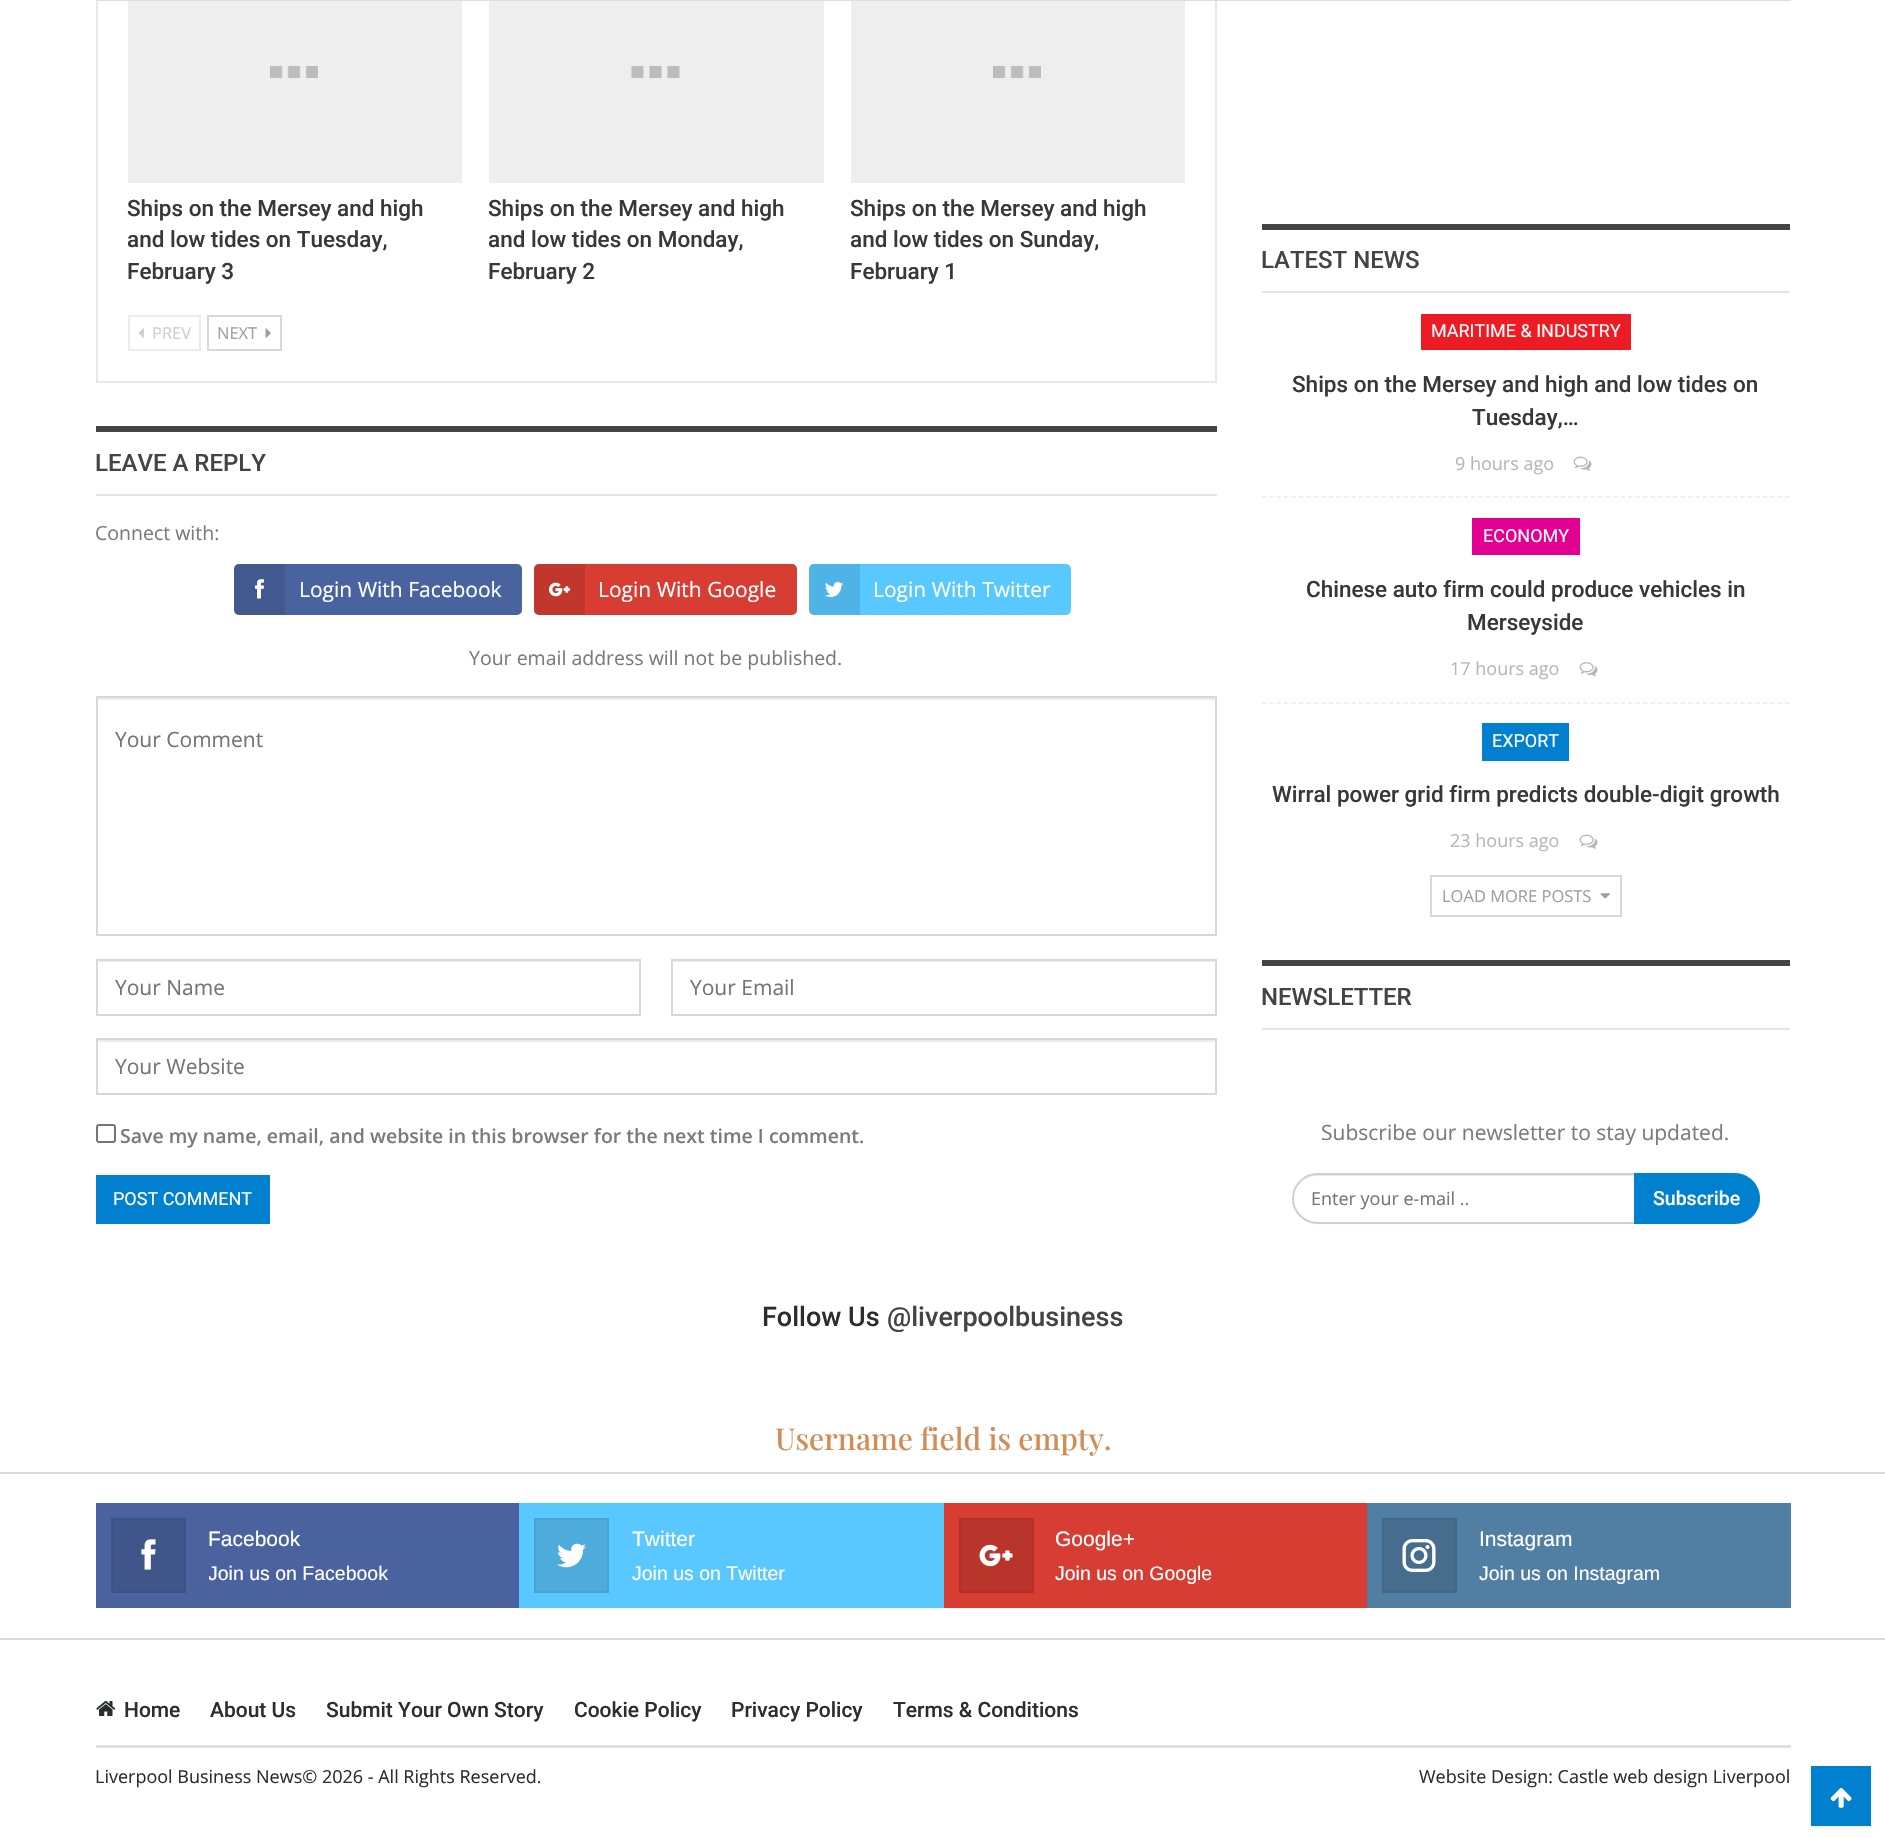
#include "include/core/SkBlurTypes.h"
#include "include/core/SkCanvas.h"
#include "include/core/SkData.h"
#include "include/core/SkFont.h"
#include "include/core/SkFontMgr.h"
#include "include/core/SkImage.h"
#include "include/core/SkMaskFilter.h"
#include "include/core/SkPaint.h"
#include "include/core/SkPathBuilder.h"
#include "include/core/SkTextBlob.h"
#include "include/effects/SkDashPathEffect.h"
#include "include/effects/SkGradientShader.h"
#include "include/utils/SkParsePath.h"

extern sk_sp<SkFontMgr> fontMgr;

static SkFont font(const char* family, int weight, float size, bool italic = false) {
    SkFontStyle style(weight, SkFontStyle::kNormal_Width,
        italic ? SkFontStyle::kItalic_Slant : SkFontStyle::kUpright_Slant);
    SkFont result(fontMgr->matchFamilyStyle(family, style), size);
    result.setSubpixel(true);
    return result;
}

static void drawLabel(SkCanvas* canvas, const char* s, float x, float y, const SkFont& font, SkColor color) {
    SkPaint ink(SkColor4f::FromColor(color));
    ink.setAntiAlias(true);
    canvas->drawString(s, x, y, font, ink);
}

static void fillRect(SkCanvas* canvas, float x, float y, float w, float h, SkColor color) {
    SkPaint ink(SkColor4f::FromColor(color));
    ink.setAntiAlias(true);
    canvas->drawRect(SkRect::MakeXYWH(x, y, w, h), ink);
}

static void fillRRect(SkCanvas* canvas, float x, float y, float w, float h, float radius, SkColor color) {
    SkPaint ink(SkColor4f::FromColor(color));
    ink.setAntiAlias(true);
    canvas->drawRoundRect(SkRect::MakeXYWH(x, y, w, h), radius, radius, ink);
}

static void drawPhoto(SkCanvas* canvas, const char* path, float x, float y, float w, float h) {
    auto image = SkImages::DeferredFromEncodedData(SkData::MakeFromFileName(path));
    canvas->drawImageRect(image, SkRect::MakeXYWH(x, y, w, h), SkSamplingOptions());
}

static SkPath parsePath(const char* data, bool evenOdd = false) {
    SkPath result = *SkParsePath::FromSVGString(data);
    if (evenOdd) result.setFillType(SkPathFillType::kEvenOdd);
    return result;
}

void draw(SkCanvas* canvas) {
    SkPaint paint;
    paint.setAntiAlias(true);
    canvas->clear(0xFFFFFFFF);
    paint.setStroke(true);
    paint.setStrokeWidth(2);
    paint.setColor(0xFFE8E8E8);
    canvas->drawRect(SkRect::MakeXYWH(97, -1, 1119, 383), paint);
    fillRect(canvas, 96, 0, 1695, 1, 0xFFDEDEDE);
    fillRect(canvas, 128, 1, 334, 182, 0xFFEEEEEE);
    drawPhoto(canvas, "assets/img1.png", 270, 66, 48, 12);
    SkFont font1 = font("Roboto", 500, 22.5f);
    drawLabel(canvas, "Ships on the Mersey and high", 127, 216, font1, 0xFF383838);
    drawLabel(canvas, "and low tides on Tuesday,", 127, 247, font1, 0xFF383838);
    drawLabel(canvas, "February 3", 127, 279, font1, 0xFF383838);
    fillRect(canvas, 489, 1, 335, 182, 0xFFEEEEEE);
    drawPhoto(canvas, "assets/img2.png", 631, 66, 49, 12);
    drawLabel(canvas, "Ships on the Mersey and high", 488, 216, font1, 0xFF383838);
    drawLabel(canvas, "and low tides on Monday,", 488, 247, font1, 0xFF383838);
    drawLabel(canvas, "February 2", 488, 279, font1, 0xFF383838);
    fillRect(canvas, 851, 1, 334, 182, 0xFFEEEEEE);
    drawPhoto(canvas, "assets/img1.png", 993, 66, 48, 12);
    drawLabel(canvas, "Ships on the Mersey and high", 850, 216, font1, 0xFF383838);
    drawLabel(canvas, "and low tides on Sunday,", 850, 247, font1, 0xFF383838);
    drawLabel(canvas, "February 1", 850, 279, font1, 0xFF383838);
    paint.setColor(0xFFECECEC);
    canvas->drawRect(SkRect::MakeXYWH(129, 316, 71, 34), paint);
    drawPhoto(canvas, "assets/img3.png", 138, 328, 6, 10);
    SkFont font2 = font("Open Sans", 400, 16.5f);
    drawLabel(canvas, "PREV", 152, 339, font2, 0xFFCFCFCF);
    paint.setColor(0xFFD8D8D8);
    canvas->drawRect(SkRect::MakeXYWH(208, 316, 73, 34), paint);
    drawLabel(canvas, "NEXT", 217, 339, font2, 0xFF9E9E9E);
    drawPhoto(canvas, "assets/img4.png", 265, 328, 6, 10);
    fillRect(canvas, 96, 426, 1121, 6, 0xFF444444);
    SkFont font3 = font("Roboto", 500, 24);
    drawLabel(canvas, "LEAVE A REPLY", 95, 471, font3, 0xFF444444);
    fillRect(canvas, 96, 494, 1121, 2, 0xFFE6E6E6);
    SkFont font4 = font("Open Sans", 400, 19.5f);
    drawLabel(canvas, "Connect with:", 95, 540, font4, 0xFF7B7B7B);
    fillRRect(canvas, 234, 564, 288, 51, 5, 0xFF49639F);
    paint.setStroke(false);
    paint.setColor(0x1A000000);
    canvas->drawPath(parsePath("M239 564H285V615H239C236 615 234 613 234 610V569C234 566 236 564 239 564Z"), paint);
    drawPhoto(canvas, "assets/img5.png", 255, 579, 9, 20);
    SkFont font5 = font("Open Sans", 400, 21);
    drawLabel(canvas, "Login With Facebook", 299, 597, font5, 0xFFFFFFFF);
    fillRRect(canvas, 534, 564, 263, 51, 5, 0xFFD73D32);
    canvas->drawPath(parsePath("M539 564H585V615H539C536 615 534 613 534 610V569C534 566 536 564 539 564Z"), paint);
    drawPhoto(canvas, "assets/img6.png", 549, 582, 21, 15);
    drawLabel(canvas, "Login With Google", 598, 597, font5, 0xFFFFFFFF);
    fillRRect(canvas, 809, 564, 262, 51, 5, 0xFF59C8FF);
    canvas->drawPath(parsePath("M814 564H860V615H814C811 615 809 613 809 610V569C809 566 811 564 814 564Z"), paint);
    drawPhoto(canvas, "assets/img7.png", 825, 582, 18, 15);
    drawLabel(canvas, "Login With Twitter", 873, 597, font5, 0xFFFFFFFF);
    drawLabel(canvas, "Your email address will not be published.", 469, 665, font4, 0xFF7B7B7B);
    fillRect(canvas, 98, 698, 1117, 2, 0xFFECECEC);
    paint.setStroke(true);
    paint.setColor(0xFFD8D8D8);
    canvas->drawRect(SkRect::MakeXYWH(97, 697, 1119, 238), paint);
    drawLabel(canvas, "Your Comment", 115, 747, font5, 0xFF757575);
    fillRect(canvas, 98, 961, 541, 1, 0xFFECECEC);
    canvas->drawRect(SkRect::MakeXYWH(97, 960, 543, 55), paint);
    drawLabel(canvas, "Your Name", 115, 995, font5, 0xFF757575);
    fillRect(canvas, 672, 961, 543, 1, 0xFFECECEC);
    canvas->drawRect(SkRect::MakeXYWH(672, 960, 544, 55), paint);
    drawLabel(canvas, "Your Email", 690, 995, font5, 0xFF757575);
    fillRect(canvas, 98, 1040, 1117, 2, 0xFFECECEC);
    canvas->drawRect(SkRect::MakeXYWH(97, 1039, 1119, 55), paint);
    drawLabel(canvas, "Your Website", 115, 1074, font5, 0xFF757575);
    paint.setColor(0xFF767676);
    canvas->drawRoundRect(SkRect::MakeXYWH(97, 1125, 18, 17), 2, 2, paint);
    SkFont font6 = font("Open Sans", 600, 19.5f);
    drawLabel(canvas, "Save my name, email, and website in this browser for the next time I comment.", 120, 1143, font6, 0xFF7B7B7B);
    fillRect(canvas, 96, 1175, 174, 49, 0xFF0080CE);
    SkFont font7 = font("Roboto", 400, 18);
    drawLabel(canvas, "POST COMMENT", 113, 1205, font7, 0xFFFFFFFF);
    fillRect(canvas, 1262, 224, 528, 6, 0xFF444444);
    drawLabel(canvas, "LATEST NEWS", 1261, 268, font3, 0xFF444444);
    fillRect(canvas, 1262, 291, 528, 2, 0xFFE6E6E6);
    paint.setStrokeWidth(1.5f);
    paint.setColor(0xFFEBEBEB);
    paint.setPathEffect(SkDashPathEffect::Make({{4.5f, 2.98f}}, 0));
    canvas->drawPath(parsePath("M1261.5 497H1789.5"), paint);
    paint.setPathEffect(nullptr);
    fillRect(canvas, 1421, 314, 210, 36, 0xFFED1C24);
    drawLabel(canvas, "MARITIME & INDUSTRY", 1431, 337, font7, 0xFFFFFFFF);
    drawLabel(canvas, "Ships on the Mersey and high and low tides on", 1292, 392, font1, 0xFF383838);
    drawLabel(canvas, "Tuesday,…", 1472, 425, font1, 0xFF383838);
    SkFont font8 = font("Open Sans", 400, 18);
    drawLabel(canvas, "9 hours ago", 1455, 470, font8, 0xFFB7B7B7);
    drawPhoto(canvas, "assets/img8.png", 1573, 456, 19, 15);
    paint.setPathEffect(SkDashPathEffect::Make({{4.5f, 2.98f}}, 0));
    canvas->drawPath(parsePath("M1261.5 703H1789.5"), paint);
    paint.setPathEffect(nullptr);
    fillRect(canvas, 1472, 518, 108, 37, 0xFFE20090);
    drawLabel(canvas, "ECONOMY", 1483, 542, font7, 0xFFFFFFFF);
    drawLabel(canvas, "Chinese auto firm could produce vehicles in", 1306, 597, font1, 0xFF383838);
    drawLabel(canvas, "Merseyside", 1467, 630, font1, 0xFF383838);
    drawLabel(canvas, "17 hours ago", 1450, 675, font8, 0xFFB7B7B7);
    drawPhoto(canvas, "assets/img9.png", 1579, 662, 19, 15);
    fillRect(canvas, 1482, 723, 87, 38, 0xFF0080CE);
    drawLabel(canvas, "EXPORT", 1492, 747, font7, 0xFFFFFFFF);
    drawLabel(canvas, "Wirral power grid firm predicts double-digit growth", 1272, 802, font1, 0xFF383838);
    drawLabel(canvas, "23 hours ago", 1450, 847, font8, 0xFFB7B7B7);
    drawPhoto(canvas, "assets/img8.png", 1579, 834, 19, 15);
    paint.setStrokeWidth(2);
    paint.setColor(0xFFD8D8D8);
    canvas->drawRect(SkRect::MakeXYWH(1431, 876, 190, 40), paint);
    drawLabel(canvas, "LOAD MORE POSTS", 1442, 902, font2, 0xFF9E9E9E);
    drawPhoto(canvas, "assets/img10.png", 1600, 893, 10, 6);
    fillRect(canvas, 1262, 960, 528, 6, 0xFF444444);
    drawLabel(canvas, "NEWSLETTER", 1261, 1005, font3, 0xFF444444);
    fillRect(canvas, 1262, 1028, 528, 2, 0xFFE6E6E6);
    drawLabel(canvas, "Subscribe our newsletter to stay updated.", 1321, 1140, font5, 0xFF7B7B7B);
    paint.setStroke(false);
    paint.setColor(0xFFECECEC);
    canvas->drawPath(parsePath("M1317 1176H1734C1747 1176 1758 1187 1758 1200C1758 1186 1747 1175 1734 1175H1317C1304 1175 1293 1186 1293 1200C1293 1187 1304 1176 1317 1176Z"), paint);
    paint.setStroke(true);
    paint.setColor(0xFFCBD1D8);
    canvas->drawRoundRect(SkRect::MakeXYWH(1293, 1174, 466, 49), 24.5f, 24.5f, paint);
    drawLabel(canvas, "Enter your e-mail ..", 1311, 1205, font8, 0xFF757575);
    paint.setStroke(false);
    paint.setColor(0xFF0080CE);
    canvas->drawPath(parsePath("M1634 1173H1734.5C1748.5 1173 1760 1184.5 1760 1198.5C1760 1212.5 1748.5 1224 1734.5 1224H1634Z"), paint);
    SkFont font9 = font("Roboto", 500, 19.5f);
    drawLabel(canvas, "Subscribe", 1653, 1205, font9, 0xFFFFFFFF);
    SkFont font10 = font("Roboto", 500, 27);
    drawLabel(canvas, "Follow Us", 762, 1326, font10, 0xFF2D2D2D);
    drawLabel(canvas, "@liverpoolbusiness", 887, 1326, font10, 0xFF444444);
    SkFont font11 = font("Playfair Display", 500, 30);
    drawLabel(canvas, "Username field is empty.", 775, 1450, font11, 0xFFD28D56);
    fillRect(canvas, 0, 1472, 1885, 2, 0xFFD9D9D9);
    fillRect(canvas, 96, 1503, 423, 105, 0xFF4A639F);
    paint.setColor(0xFF405589);
    canvas->drawRect(SkRect::MakeXYWH(112, 1519, 73, 73), paint);
    paint.setStroke(true);
    paint.setColor(0xFF3D5182);
    canvas->drawRect(SkRect::MakeXYWH(112, 1519, 73, 73), paint);
    drawPhoto(canvas, "assets/img11.png", 141, 1539, 15, 31);
    SkFont font12 = font("Liberation Sans", 400, 21);
    drawLabel(canvas, "Facebook", 208, 1546, font12, 0xFFFFFFFF);
    canvas->save();
    canvas->clipRect(SkRect::MakeXYWH(209, 1557, 295, 33));
    SkFont font13 = font("Liberation Sans", 400, 19.5f);
    drawLabel(canvas, "Join us on Facebook", 208, 1580, font13, 0xFFFFFFFF);
    canvas->restore();
    fillRect(canvas, 519, 1503, 425, 105, 0xFF59C8FF);
    paint.setStroke(false);
    paint.setColor(0xFF4DACDB);
    canvas->drawRect(SkRect::MakeXYWH(535, 1519, 73, 73), paint);
    paint.setStroke(true);
    paint.setColor(0xFF49A3D0);
    canvas->drawRect(SkRect::MakeXYWH(535, 1519, 73, 73), paint);
    drawPhoto(canvas, "assets/img12.png", 557, 1543, 29, 25);
    drawLabel(canvas, "Twitter", 632, 1546, font12, 0xFFFFFFFF);
    drawLabel(canvas, "Join us on Twitter", 632, 1580, font13, 0xFFFFFFFF);
    fillRect(canvas, 944, 1503, 423, 105, 0xFFD73D32);
    paint.setStroke(false);
    paint.setColor(0xFFB9342B);
    canvas->drawRect(SkRect::MakeXYWH(960, 1519, 73, 73), paint);
    paint.setStroke(true);
    paint.setColor(0xFFB03129);
    canvas->drawRect(SkRect::MakeXYWH(960, 1519, 73, 73), paint);
    drawPhoto(canvas, "assets/img13.png", 979, 1544, 34, 23);
    drawLabel(canvas, "Google+", 1055, 1546, font12, 0xFFFFFFFF);
    drawLabel(canvas, "Join us on Google", 1055, 1580, font13, 0xFFFFFFFF);
    fillRect(canvas, 1367, 1503, 424, 105, 0xFF517FA4);
    paint.setStroke(false);
    paint.setColor(0xFF466D8D);
    canvas->drawRect(SkRect::MakeXYWH(1383, 1519, 73, 73), paint);
    paint.setStroke(true);
    paint.setColor(0xFF436886);
    canvas->drawRect(SkRect::MakeXYWH(1383, 1519, 73, 73), paint);
    drawPhoto(canvas, "assets/img14.png", 1402, 1539, 34, 33);
    drawLabel(canvas, "Instagram", 1479, 1546, font12, 0xFFFFFFFF);
    drawLabel(canvas, "Join us on Instagram", 1479, 1580, font13, 0xFFFFFFFF);
    fillRect(canvas, 0, 1638, 1885, 2, 0xFFD9D9D9);
    fillRect(canvas, 96, 1745, 1695, 3, 0xFFE0E0E0);
    drawPhoto(canvas, "assets/img15.png", 96, 1701, 20, 15);
    SkFont font14 = font("Roboto", 500, 21);
    drawLabel(canvas, "Home", 124, 1717, font14, 0xFF2D2D2D);
    drawLabel(canvas, "About Us", 210, 1717, font14, 0xFF2D2D2D);
    drawLabel(canvas, "Submit Your Own Story", 326, 1717, font14, 0xFF2D2D2D);
    drawLabel(canvas, "Cookie Policy", 574, 1717, font14, 0xFF2D2D2D);
    drawLabel(canvas, "Privacy Policy", 731, 1717, font14, 0xFF2D2D2D);
    drawLabel(canvas, "Terms & Conditions", 893, 1717, font14, 0xFF2D2D2D);
    drawLabel(canvas, "Liverpool Business News© 2026 - All Rights Reserved.", 95, 1783, font8, 0xFF2D2D2D);
    drawLabel(canvas, "Website Design: Castle web design Liverpool", 1419, 1783, font8, 0xFF2D2D2D);
    paint.setStroke(false);
    paint.setColor(0x17000000);
    paint.setMaskFilter(SkMaskFilter::MakeBlur(kNormal_SkBlurStyle, 1.5f));
    canvas->drawRect(SkRect::MakeXYWH(1811, 1767, 60, 60), paint);
    paint.setMaskFilter(nullptr);
    fillRect(canvas, 1811, 1766, 60, 60, 0xFF0080CE);
    drawPhoto(canvas, "assets/img16.png", 1830, 1788, 22, 20);
}
